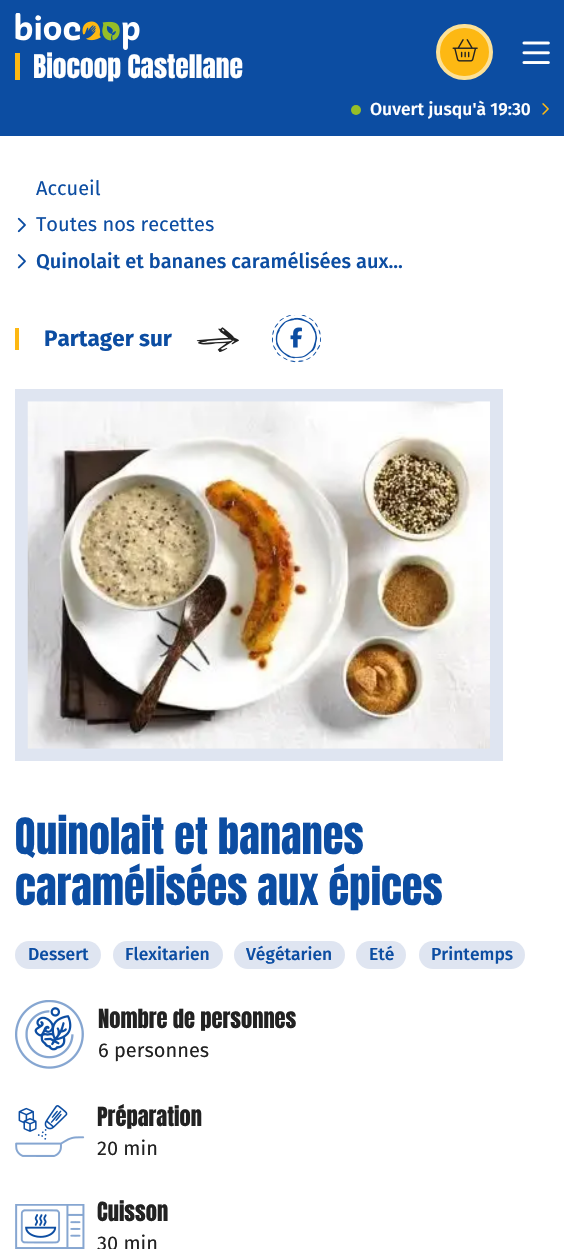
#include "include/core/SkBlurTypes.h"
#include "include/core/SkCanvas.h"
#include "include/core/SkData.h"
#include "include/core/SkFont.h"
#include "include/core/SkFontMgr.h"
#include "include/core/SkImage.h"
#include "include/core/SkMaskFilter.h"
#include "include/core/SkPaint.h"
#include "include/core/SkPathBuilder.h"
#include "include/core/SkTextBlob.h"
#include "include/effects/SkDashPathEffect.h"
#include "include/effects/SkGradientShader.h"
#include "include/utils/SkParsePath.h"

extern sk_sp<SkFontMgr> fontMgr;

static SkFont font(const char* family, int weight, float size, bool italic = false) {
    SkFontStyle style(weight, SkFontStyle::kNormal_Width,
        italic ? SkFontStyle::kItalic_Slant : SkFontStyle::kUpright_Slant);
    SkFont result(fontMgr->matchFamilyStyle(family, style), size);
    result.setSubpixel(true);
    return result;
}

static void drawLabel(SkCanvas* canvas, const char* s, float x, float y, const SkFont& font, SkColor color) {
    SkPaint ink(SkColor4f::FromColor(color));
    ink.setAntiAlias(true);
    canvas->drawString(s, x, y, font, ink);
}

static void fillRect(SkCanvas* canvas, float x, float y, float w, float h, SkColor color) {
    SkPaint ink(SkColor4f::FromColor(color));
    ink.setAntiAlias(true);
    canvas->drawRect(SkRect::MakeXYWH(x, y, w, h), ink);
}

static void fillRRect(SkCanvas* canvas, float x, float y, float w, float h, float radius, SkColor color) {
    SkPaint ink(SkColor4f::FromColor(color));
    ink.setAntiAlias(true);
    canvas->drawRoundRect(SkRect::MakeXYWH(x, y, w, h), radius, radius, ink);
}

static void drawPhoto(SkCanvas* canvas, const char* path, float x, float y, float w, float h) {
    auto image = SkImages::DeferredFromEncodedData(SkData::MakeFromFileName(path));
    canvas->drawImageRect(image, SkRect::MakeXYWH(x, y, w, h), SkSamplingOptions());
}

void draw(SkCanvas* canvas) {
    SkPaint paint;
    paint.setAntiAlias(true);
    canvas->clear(0xFFFFFFFF);
    fillRect(canvas, 0, 0, 564, 136, 0xFF0C4DA2);
    drawPhoto(canvas, "assets/img1.png", 15, 13, 125, 37);
    fillRect(canvas, 15, 53, 5, 27, 0xFFFDB813);
    SkFont font1 = font("Anton", 400, 27.5f);
    drawLabel(canvas, "Biocoop Castellane", 33, 78, font1, 0xFFFFFFFF);
    paint.setColor(0xFFFDB813);
    canvas->drawRoundRect(SkRect::MakeXYWH(438, 26, 53, 52), 26, 26, paint);
    paint.setStroke(true);
    paint.setStrokeWidth(4);
    paint.setColor(0xFFFCE197);
    canvas->drawRoundRect(SkRect::MakeXYWH(438, 26, 53, 52), 26, 26, paint);
    drawPhoto(canvas, "assets/img2.png", 452, 39, 26, 23);
    drawPhoto(canvas, "assets/img3.png", 522, 41, 28, 23);
    paint.setStroke(false);
    paint.setColor(0xFF96BE28);
    canvas->drawCircle(356, 110, 5, paint);
    SkFont font2 = font("Fira Sans", 500, 17.5f);
    drawLabel(canvas, "Ouvert jusqu'à 19:30", 370, 115, font2, 0xFFFFFFFF);
    drawPhoto(canvas, "assets/img4.png", 542, 103, 7, 12);
    SkFont font3 = font("Fira Sans", 400, 20);
    drawLabel(canvas, "Accueil", 36, 195, font3, 0xFF0C4DA2);
    drawPhoto(canvas, "assets/img5.png", 17, 217, 9, 16);
    drawLabel(canvas, "Toutes nos recettes", 36, 231, font3, 0xFF0C4DA2);
    drawPhoto(canvas, "assets/img6.png", 17, 254, 9, 15);
    SkFont font4 = font("Fira Sans", 500, 20);
    drawLabel(canvas, "Quinolait et bananes caramélisées aux...", 36, 268, font4, 0xFF0C4DA2);
    fillRect(canvas, 15, 328, 4, 22, 0xFFFDB813);
    SkFont font5 = font("Fira Sans", 700, 22.5f);
    drawLabel(canvas, "Partager sur", 44, 346, font5, 0xFF0C4DA2);
    drawPhoto(canvas, "assets/img7.png", 196, 327, 43, 25);
    drawPhoto(canvas, "assets/img8.png", 271, 315, 50, 48);
    drawPhoto(canvas, "assets/img9.png", 290, 327, 12, 21);
    paint.setStroke(true);
    paint.setStrokeWidth(13);
    paint.setColor(0xFFDFE5F1);
    canvas->drawRect(SkRect::MakeXYWH(21.5f, 395.5f, 475, 359), paint);
    drawPhoto(canvas, "assets/img10.png", 27, 401, 463, 348);
    SkFont font6 = font("Anton", 400, 42.5f);
    drawLabel(canvas, "Quinolait et bananes", 15, 854, font6, 0xFF0C4DA2);
    drawLabel(canvas, "caramélisées aux épices", 15, 905, font6, 0xFF0C4DA2);
    fillRRect(canvas, 15, 941, 86, 28, 14, 0xFFDFE5F1);
    drawLabel(canvas, "Dessert", 28, 960, font2, 0xFF0C4DA2);
    fillRRect(canvas, 113, 941, 110, 28, 14, 0xFFDFE5F1);
    drawLabel(canvas, "Flexitarien", 125, 960, font2, 0xFF0C4DA2);
    fillRRect(canvas, 234, 941, 111, 28, 14, 0xFFDFE5F1);
    drawLabel(canvas, "Végétarien", 246, 960, font2, 0xFF0C4DA2);
    fillRRect(canvas, 356, 941, 50, 28, 14, 0xFFDFE5F1);
    drawLabel(canvas, "Eté", 369, 960, font2, 0xFF0C4DA2);
    fillRRect(canvas, 419, 941, 106, 28, 14, 0xFFDFE5F1);
    drawLabel(canvas, "Printemps", 431, 960, font2, 0xFF0C4DA2);
    drawPhoto(canvas, "assets/img11.png", 15, 1000, 69, 69);
    SkFont font7 = font("Anton", 400, 22.5f);
    drawLabel(canvas, "Nombre de personnes", 98, 1028, font7, 0xFF222222);
    drawLabel(canvas, "6 personnes", 98, 1057, font3, 0xFF222222);
    drawPhoto(canvas, "assets/img12.png", 15, 1105, 70, 52);
    drawLabel(canvas, "Préparation", 97, 1126, font7, 0xFF222222);
    drawLabel(canvas, "20 min", 97, 1155, font3, 0xFF222222);
    drawPhoto(canvas, "assets/img13.png", 15, 1204, 70, 45);
    drawLabel(canvas, "Cuisson", 97, 1221, font7, 0xFF222222);
    drawLabel(canvas, "30 min", 97, 1250, font3, 0xFF222222);
}
